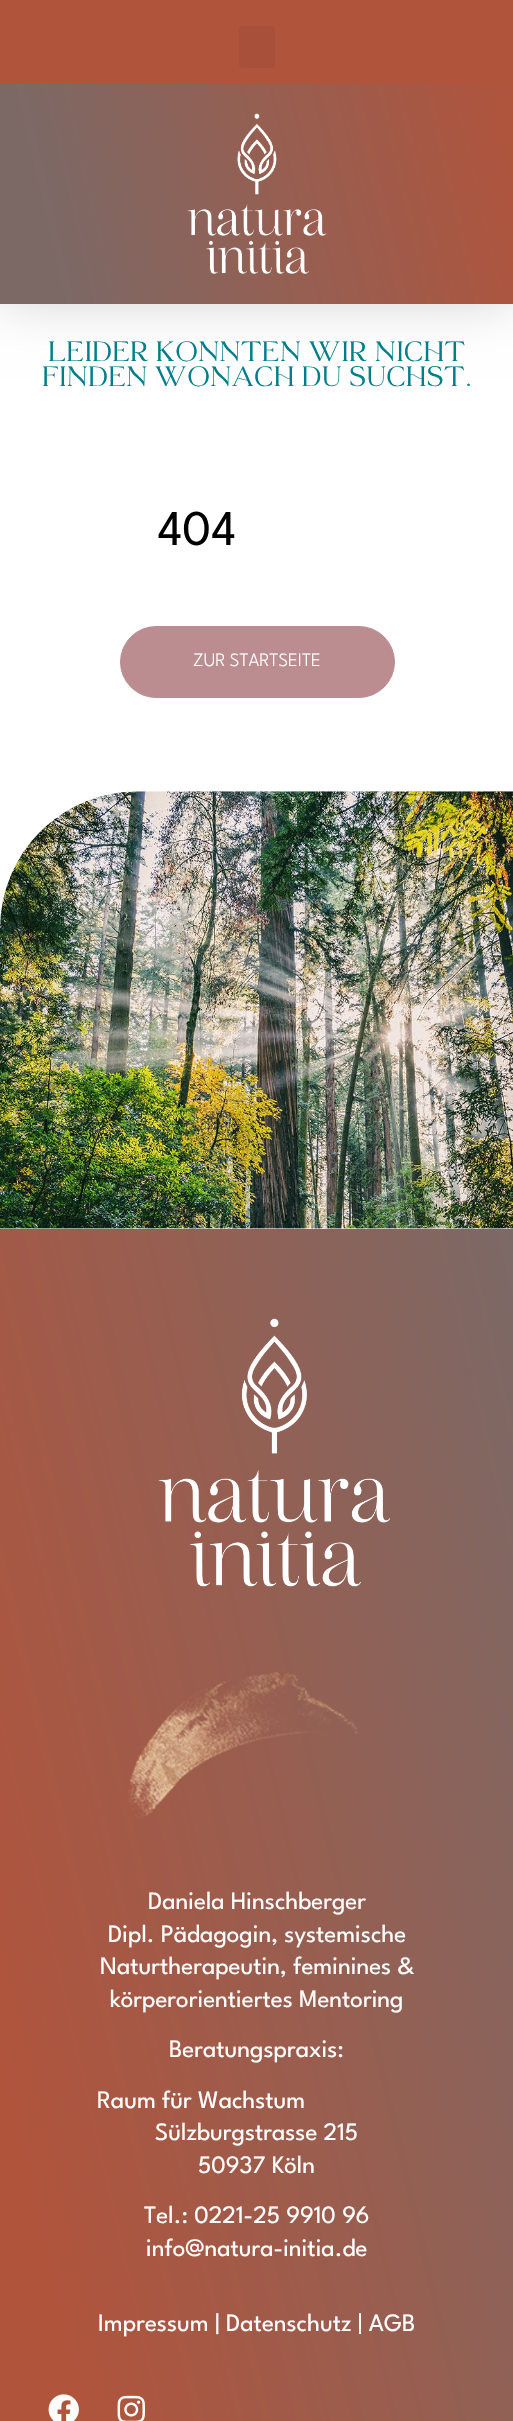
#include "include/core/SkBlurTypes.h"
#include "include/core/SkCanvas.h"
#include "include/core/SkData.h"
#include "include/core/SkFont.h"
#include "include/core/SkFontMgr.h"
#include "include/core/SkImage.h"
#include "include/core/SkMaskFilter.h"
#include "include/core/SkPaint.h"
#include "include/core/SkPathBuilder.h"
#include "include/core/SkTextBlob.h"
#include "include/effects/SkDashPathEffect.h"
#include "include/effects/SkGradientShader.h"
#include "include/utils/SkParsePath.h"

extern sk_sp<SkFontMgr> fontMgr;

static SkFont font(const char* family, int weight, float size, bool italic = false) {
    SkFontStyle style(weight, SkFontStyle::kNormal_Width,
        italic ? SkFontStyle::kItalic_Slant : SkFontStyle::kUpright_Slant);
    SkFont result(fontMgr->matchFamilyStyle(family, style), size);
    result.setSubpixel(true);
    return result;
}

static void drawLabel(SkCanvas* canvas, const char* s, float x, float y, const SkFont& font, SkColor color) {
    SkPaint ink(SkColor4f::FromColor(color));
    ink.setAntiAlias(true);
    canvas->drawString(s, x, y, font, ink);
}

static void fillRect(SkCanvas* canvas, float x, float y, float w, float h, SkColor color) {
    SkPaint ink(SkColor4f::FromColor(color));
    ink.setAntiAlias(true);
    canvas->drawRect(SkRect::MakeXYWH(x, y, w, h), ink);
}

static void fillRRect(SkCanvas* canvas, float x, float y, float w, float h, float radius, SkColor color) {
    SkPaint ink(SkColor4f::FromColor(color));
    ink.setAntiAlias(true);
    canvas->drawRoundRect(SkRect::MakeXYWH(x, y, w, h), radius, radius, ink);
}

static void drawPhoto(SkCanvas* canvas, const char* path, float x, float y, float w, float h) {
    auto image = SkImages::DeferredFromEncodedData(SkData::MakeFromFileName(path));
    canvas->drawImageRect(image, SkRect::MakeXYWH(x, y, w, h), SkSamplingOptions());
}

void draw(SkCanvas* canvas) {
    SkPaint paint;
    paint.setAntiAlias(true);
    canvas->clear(0xFFFFFFFF);
    paint.setColor(0x29000000);
    paint.setMaskFilter(SkMaskFilter::MakeBlur(kNormal_SkBlurStyle, 25));
    canvas->drawRect(SkRect::MakeXYWH(0, 84, 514, 220), paint);
    paint.setMaskFilter(nullptr);
    fillRect(canvas, 0, 0, 513, 84, 0xFFB1543C);
    fillRRect(canvas, 239, 26, 36, 42, 4, 0xFFA85039);
    {
        const SkColor colors[] = {0xFFB1543C, 0xFF7C6966};
        const float stops[] = {0, 0.89f};
        const SkPoint ends[] = {{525, 132}, {-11, 256}};
        paint.setShader(SkGradientShader::MakeLinear(ends, colors, stops, 2, SkTileMode::kClamp));
        paint.setAlpha(255);
    }
    canvas->drawRect(SkRect::MakeXYWH(0, 84, 513, 220), paint);
    drawPhoto(canvas, "assets/img1.png", 187, 113, 140, 161);
    SkFont font1 = font("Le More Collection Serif", 400, 25);
    drawLabel(canvas, "Leider konnten wir nicht", 48, 361, font1, 0xFF007E89);
    drawLabel(canvas, "finden wonach Du suchst.", 42, 386, font1, 0xFF007E89);
    drawPhoto(canvas, "assets/img2.png", 158, 511, 77, 35);
    paint.setShader(nullptr);
    paint.setColor(0xFFBB8C90);
    canvas->drawRoundRect(SkRect::MakeXYWH(120.5f, 626.5f, 274, 71), 35.5f, 35.5f, paint);
    paint.setStroke(true);
    paint.setStrokeWidth(1);
    canvas->drawRoundRect(SkRect::MakeXYWH(120.5f, 626.5f, 274, 71), 35.5f, 35.5f, paint);
    SkFont font2 = font("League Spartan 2", 100, 18.75f);
    drawLabel(canvas, "ZUR STARTSEITE", 193, 666, font2, 0xFFFFFFFF);
    drawPhoto(canvas, "assets/img3.png", 0, 791, 513, 438);
    paint.setStroke(false);
    {
        const SkColor colors[] = {0xFF7C6966, 0xFFB1543C};
        const float stops[] = {0, 0.89f};
        const SkPoint ends[] = {{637, 1763}, {-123, 1938}};
        paint.setShader(SkGradientShader::MakeLinear(ends, colors, stops, 2, SkTileMode::kClamp));
        paint.setAlpha(255);
    }
    canvas->drawRect(SkRect::MakeXYWH(0, 1229, 513, 1192), paint);
    drawPhoto(canvas, "assets/img4.png", 158, 1318, 232, 269);
    drawPhoto(canvas, "assets/img5.png", 127, 1672, 231, 147);
    SkFont font3 = font("League Spartan", 100, 25);
    drawLabel(canvas, "Daniela Hinschberger", 148, 1909, font3, 0xFFFFFFFF);
    drawLabel(canvas, "Dipl. Pädagogin, systemische", 108, 1942, font3, 0xFFFFFFFF);
    drawLabel(canvas, "Naturtherapeutin, feminines &", 100, 1974, font3, 0xFFFFFFFF);
    drawLabel(canvas, "körperorientiertes Mentoring", 110, 2007, font3, 0xFFFFFFFF);
    drawLabel(canvas, "Beratungspraxis:", 169, 2057, font3, 0xFFFFFFFF);
    drawLabel(canvas, "Raum für Wachstum", 97, 2108, font3, 0xFFFFFFFF);
    drawLabel(canvas, "Sülzburgstrasse 215", 155, 2140, font3, 0xFFFFFFFF);
    drawLabel(canvas, "50937 Köln", 198, 2173, font3, 0xFFFFFFFF);
    drawLabel(canvas, "Tel.: 0221-25 9910 96", 144, 2223, font3, 0xFFFFFFFF);
    drawLabel(canvas, "info@natura-initia.de", 146, 2256, font3, 0xFFFFFFFF);
    drawLabel(canvas, "Impressum | Datenschutz | AGB", 98, 2331, font3, 0xFFFFFFFF);
    drawPhoto(canvas, "assets/img6.png", 48, 2394, 31, 27);
    drawPhoto(canvas, "assets/img7.png", 117, 2395, 28, 26);
}
